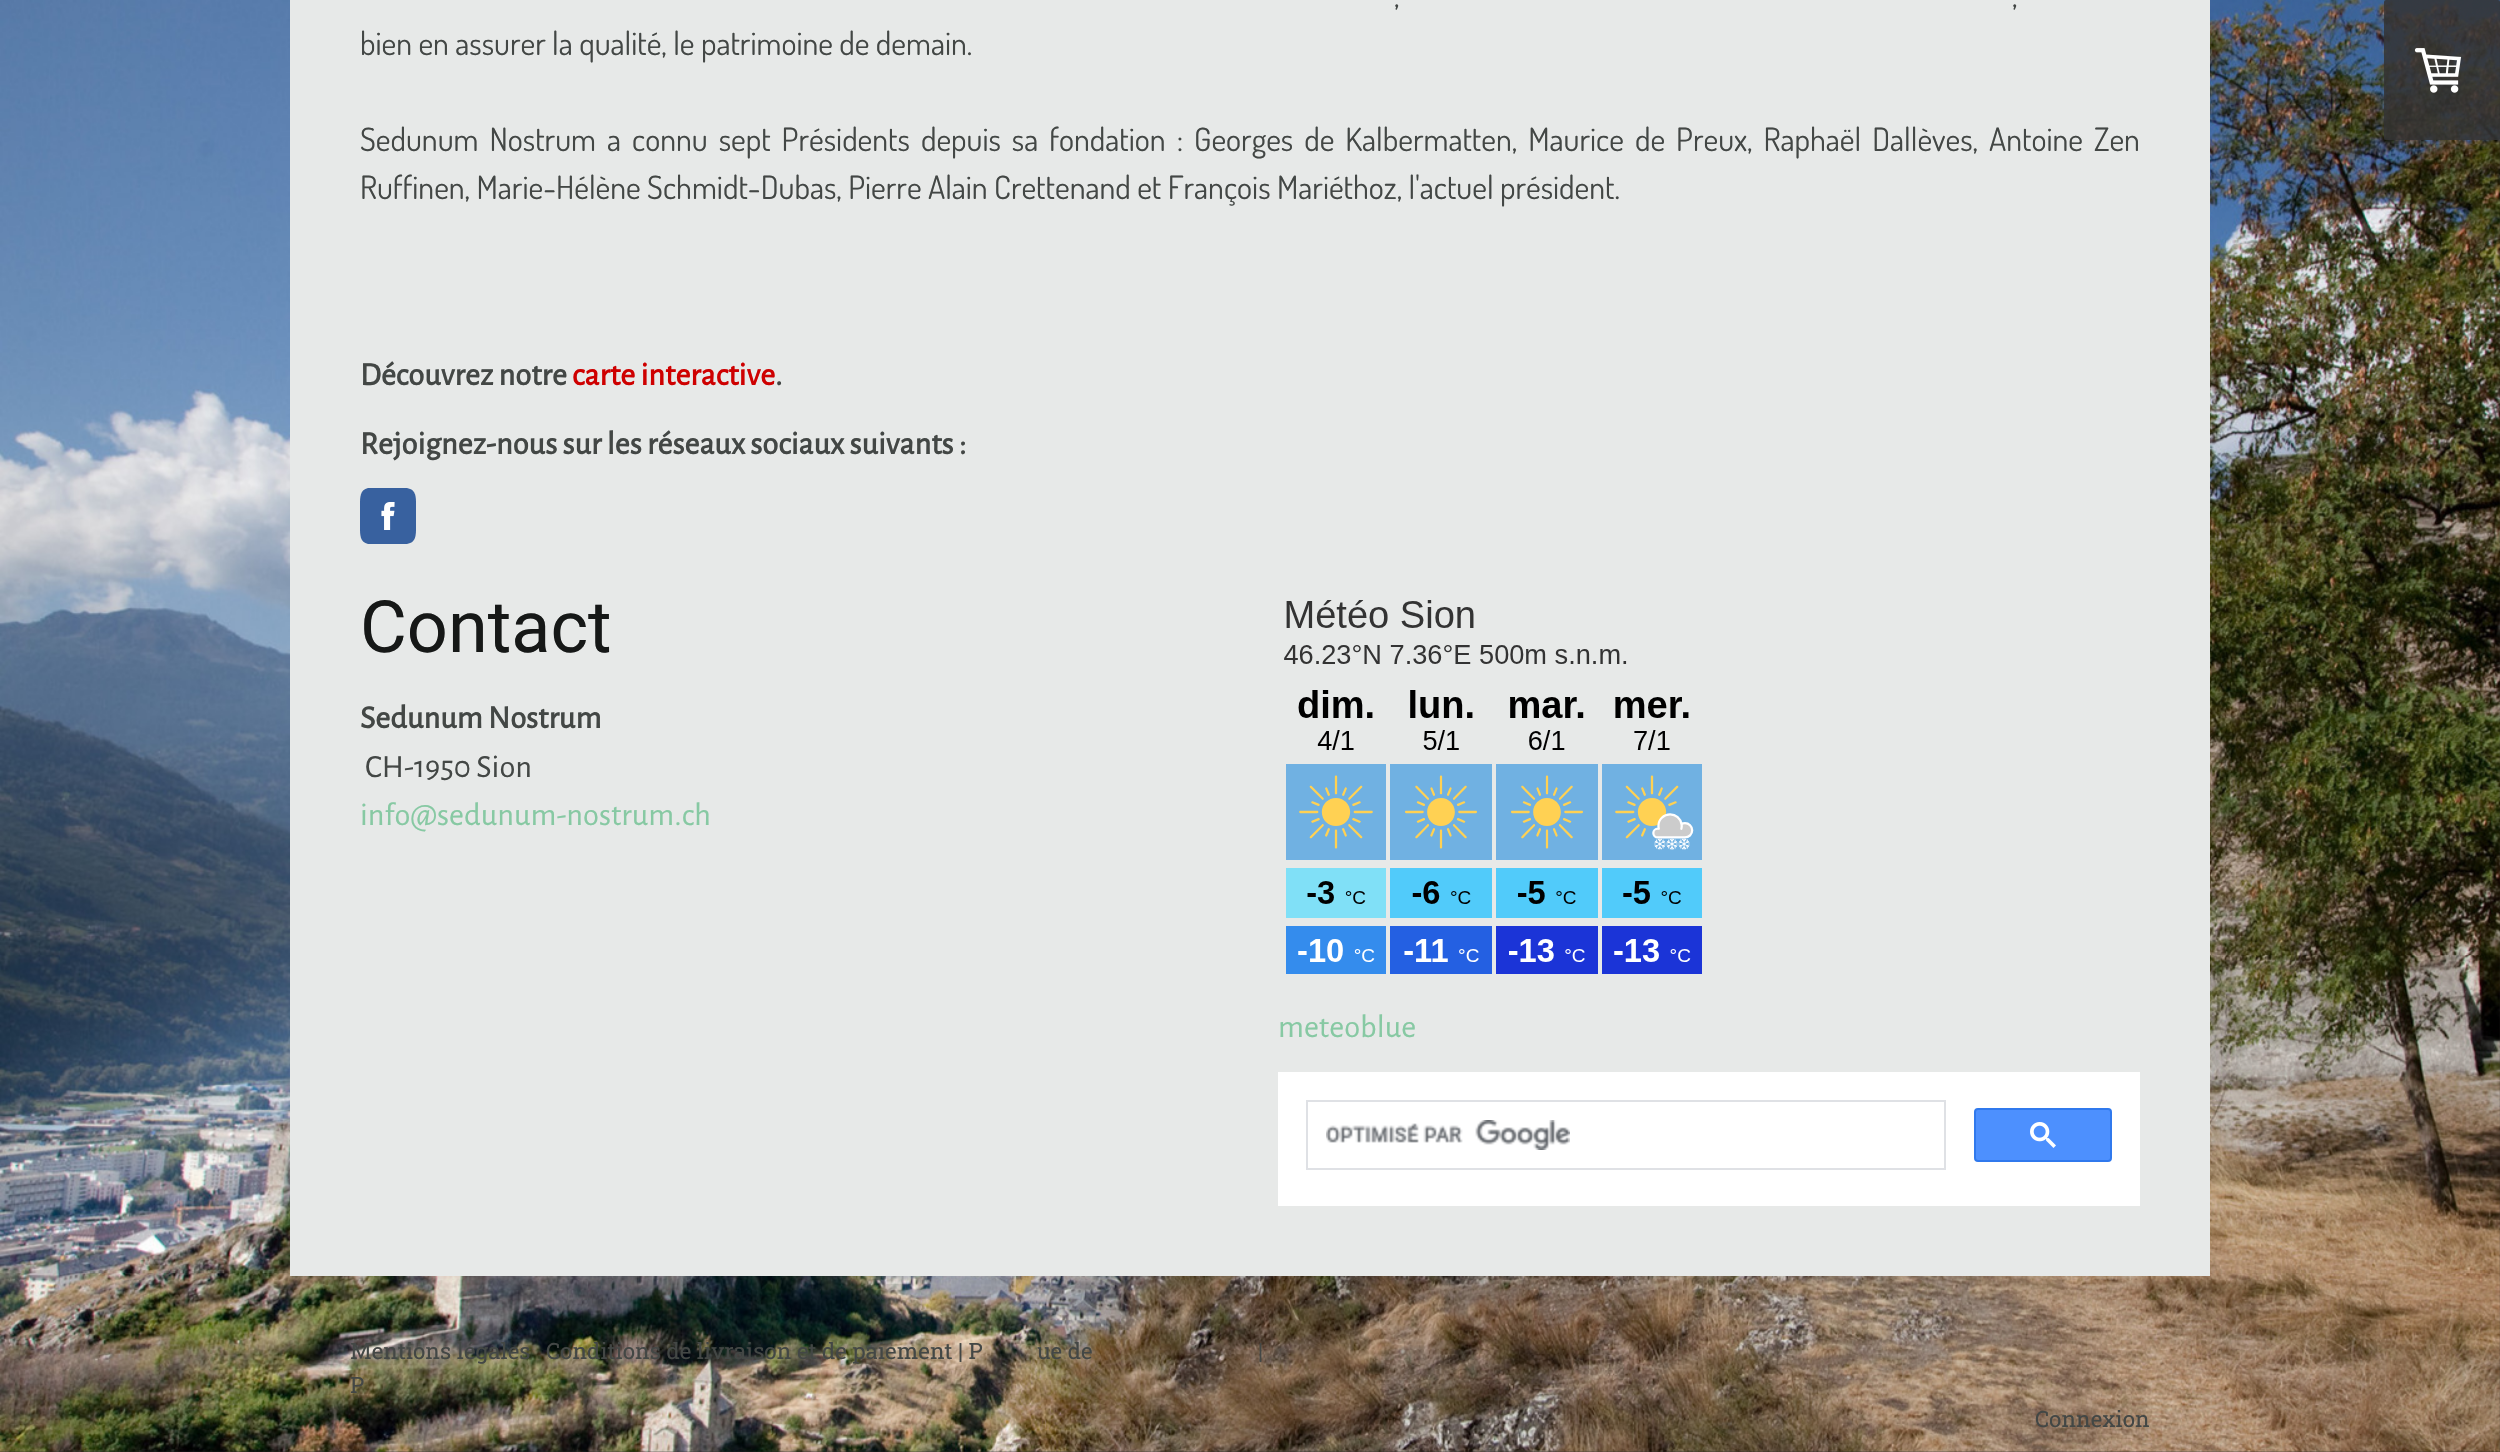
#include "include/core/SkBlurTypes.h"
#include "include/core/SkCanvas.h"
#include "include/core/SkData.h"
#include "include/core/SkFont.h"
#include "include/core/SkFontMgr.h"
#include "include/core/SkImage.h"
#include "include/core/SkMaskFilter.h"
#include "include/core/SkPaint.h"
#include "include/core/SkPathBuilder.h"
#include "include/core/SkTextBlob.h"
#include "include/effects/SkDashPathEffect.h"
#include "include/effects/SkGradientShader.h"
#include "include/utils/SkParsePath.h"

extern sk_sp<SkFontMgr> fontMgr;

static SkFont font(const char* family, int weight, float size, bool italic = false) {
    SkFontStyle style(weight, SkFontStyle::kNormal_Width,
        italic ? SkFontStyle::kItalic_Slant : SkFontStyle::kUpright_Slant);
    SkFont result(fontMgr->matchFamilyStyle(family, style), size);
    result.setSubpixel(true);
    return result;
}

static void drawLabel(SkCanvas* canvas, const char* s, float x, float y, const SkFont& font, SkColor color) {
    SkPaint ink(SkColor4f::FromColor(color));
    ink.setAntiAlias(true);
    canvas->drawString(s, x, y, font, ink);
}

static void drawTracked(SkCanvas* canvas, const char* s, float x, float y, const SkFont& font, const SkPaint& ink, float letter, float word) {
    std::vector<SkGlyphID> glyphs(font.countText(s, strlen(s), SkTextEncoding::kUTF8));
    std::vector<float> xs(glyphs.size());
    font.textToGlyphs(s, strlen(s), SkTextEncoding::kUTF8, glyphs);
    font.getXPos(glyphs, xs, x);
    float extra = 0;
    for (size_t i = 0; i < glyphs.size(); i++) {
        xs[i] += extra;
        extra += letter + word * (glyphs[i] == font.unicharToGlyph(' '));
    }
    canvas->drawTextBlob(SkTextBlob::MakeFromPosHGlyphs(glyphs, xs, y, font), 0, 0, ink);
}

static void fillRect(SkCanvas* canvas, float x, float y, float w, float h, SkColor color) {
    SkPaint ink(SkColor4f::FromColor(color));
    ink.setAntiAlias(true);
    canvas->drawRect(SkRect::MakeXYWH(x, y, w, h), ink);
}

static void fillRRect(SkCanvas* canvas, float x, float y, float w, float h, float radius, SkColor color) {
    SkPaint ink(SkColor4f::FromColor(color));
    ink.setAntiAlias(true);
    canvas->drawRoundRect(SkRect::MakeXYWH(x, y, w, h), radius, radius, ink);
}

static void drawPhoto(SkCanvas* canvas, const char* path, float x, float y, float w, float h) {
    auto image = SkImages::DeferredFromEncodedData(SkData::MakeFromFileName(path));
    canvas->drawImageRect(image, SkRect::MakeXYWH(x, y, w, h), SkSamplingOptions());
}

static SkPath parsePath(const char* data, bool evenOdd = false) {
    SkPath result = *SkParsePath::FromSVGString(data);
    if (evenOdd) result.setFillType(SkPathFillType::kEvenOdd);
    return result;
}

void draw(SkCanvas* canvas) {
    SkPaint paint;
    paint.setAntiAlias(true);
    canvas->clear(0xFF2B2828);
    drawPhoto(canvas, "assets/img1.png", 0, 0, 2500, 1452);
    fillRect(canvas, 290, 0, 1920, 1276, 0xFFE7E9E8);
    SkFont font1 = font("Dosis", 400, 32);
    drawLabel(canvas, ",", 1394, 7, font1, 0xFF434745);
    drawLabel(canvas, ",", 2012, 7, font1, 0xFF434745);
    drawLabel(canvas, "bien en assurer la qualité, le patrimoine de demain.", 360, 55, font1, 0xFF434745);
    paint.setColor(0xFF434745);
    drawTracked(canvas, "Sedunum Nostrum a connu sept Présidents depuis sa fondation : Georges de Kalbermatten, Maurice de Preux, Raphaël Dallèves, Antoine Zen", 360, 151, font1, paint, 0, 4.6f);
    drawLabel(canvas, "Ruffinen, Marie-Hélène Schmidt-Dubas, Pierre Alain Crettenand et François Mariéthoz, l'actuel président.", 360, 199, font1, 0xFF434745);
    fillRRect(canvas, 2384, 0, 116, 140, 2, 0xD9333333);
    drawPhoto(canvas, "assets/img2.png", 2414, 48, 48, 45);
    SkFont font2 = font("Alegreya Sans", 700, 32.4f);
    drawLabel(canvas, "Découvrez notre", 360, 385, font2, 0xFF434745);
    drawLabel(canvas, "carte interactive", 572, 385, font2, 0xFFCE0000);
    drawLabel(canvas, ".", 775, 385, font2, 0xFF434745);
    drawLabel(canvas, "Rejoignez-nous sur les réseaux sociaux suivants :", 360, 454, font2, 0xFF434745);
    paint.setColor(0xFF38619F);
    canvas->drawPath(parsePath("M405 544H368C360 542 360 535 360 528V504C360 497 360 490 368 488H405C416 488 416 497 416 504V528C416 535 416 544 405 544Z"), paint);
    drawPhoto(canvas, "assets/img3.png", 381, 502, 14, 28);
    SkFont font3 = font("Roboto", 400, 72);
    drawLabel(canvas, "Contact", 360, 652, font3, 0xFF161817);
    drawLabel(canvas, "Sedunum Nostrum", 360, 728, font2, 0xFF434745);
    SkFont font4 = font("Alegreya Sans", 400, 32.4f);
    drawLabel(canvas, "CH-1950 Sion", 365, 777, font4, 0xFF434745);
    drawLabel(canvas, "info@sedunum-nostrum.ch", 360, 825, font4, 0xFF87C9A3);
    drawPhoto(canvas, "assets/img4.png", 1284, 600, 418, 374);
    drawLabel(canvas, "meteoblue", 1278, 1037, font4, 0xFF87C9A3);
    fillRect(canvas, 1278, 1072, 862, 134, 0xFFFFFFFF);
    paint.setStroke(true);
    paint.setStrokeWidth(2);
    paint.setColor(0xFFDFE1E5);
    canvas->drawRect(SkRect::MakeXYWH(1307, 1101, 638, 68), paint);
    drawPhoto(canvas, "assets/img5.png", 1326, 1120, 244, 30);
    paint.setStroke(false);
    paint.setColor(0xFF4D90FE);
    canvas->drawRoundRect(SkRect::MakeXYWH(1975, 1109, 136, 52), 3, 3, paint);
    paint.setStroke(true);
    paint.setColor(0xFF3079ED);
    canvas->drawRoundRect(SkRect::MakeXYWH(1975, 1109, 136, 52), 3, 3, paint);
    drawPhoto(canvas, "assets/img6.png", 2030, 1122, 26, 26);
    SkFont font5 = font("Roboto Slab", 400, 22.4f);
    drawLabel(canvas, "Mentions légales", 350, 1359, font5, 0xFF434745);
    drawLabel(canvas, "Conditions de livraison et de paiement", 546, 1359, font5, 0xFF434745);
    drawLabel(canvas, "| P", 958, 1359, font5, 0xFF434745);
    drawLabel(canvas, "ue de", 1037, 1359, font5, 0xFF434745);
    drawLabel(canvas, "|", 1258, 1359, font5, 0xFF434745);
    drawLabel(canvas, "P", 350, 1393, font5, 0xFF434745);
    drawLabel(canvas, "Connexion", 2035, 1427, font5, 0xFF434745);
}
